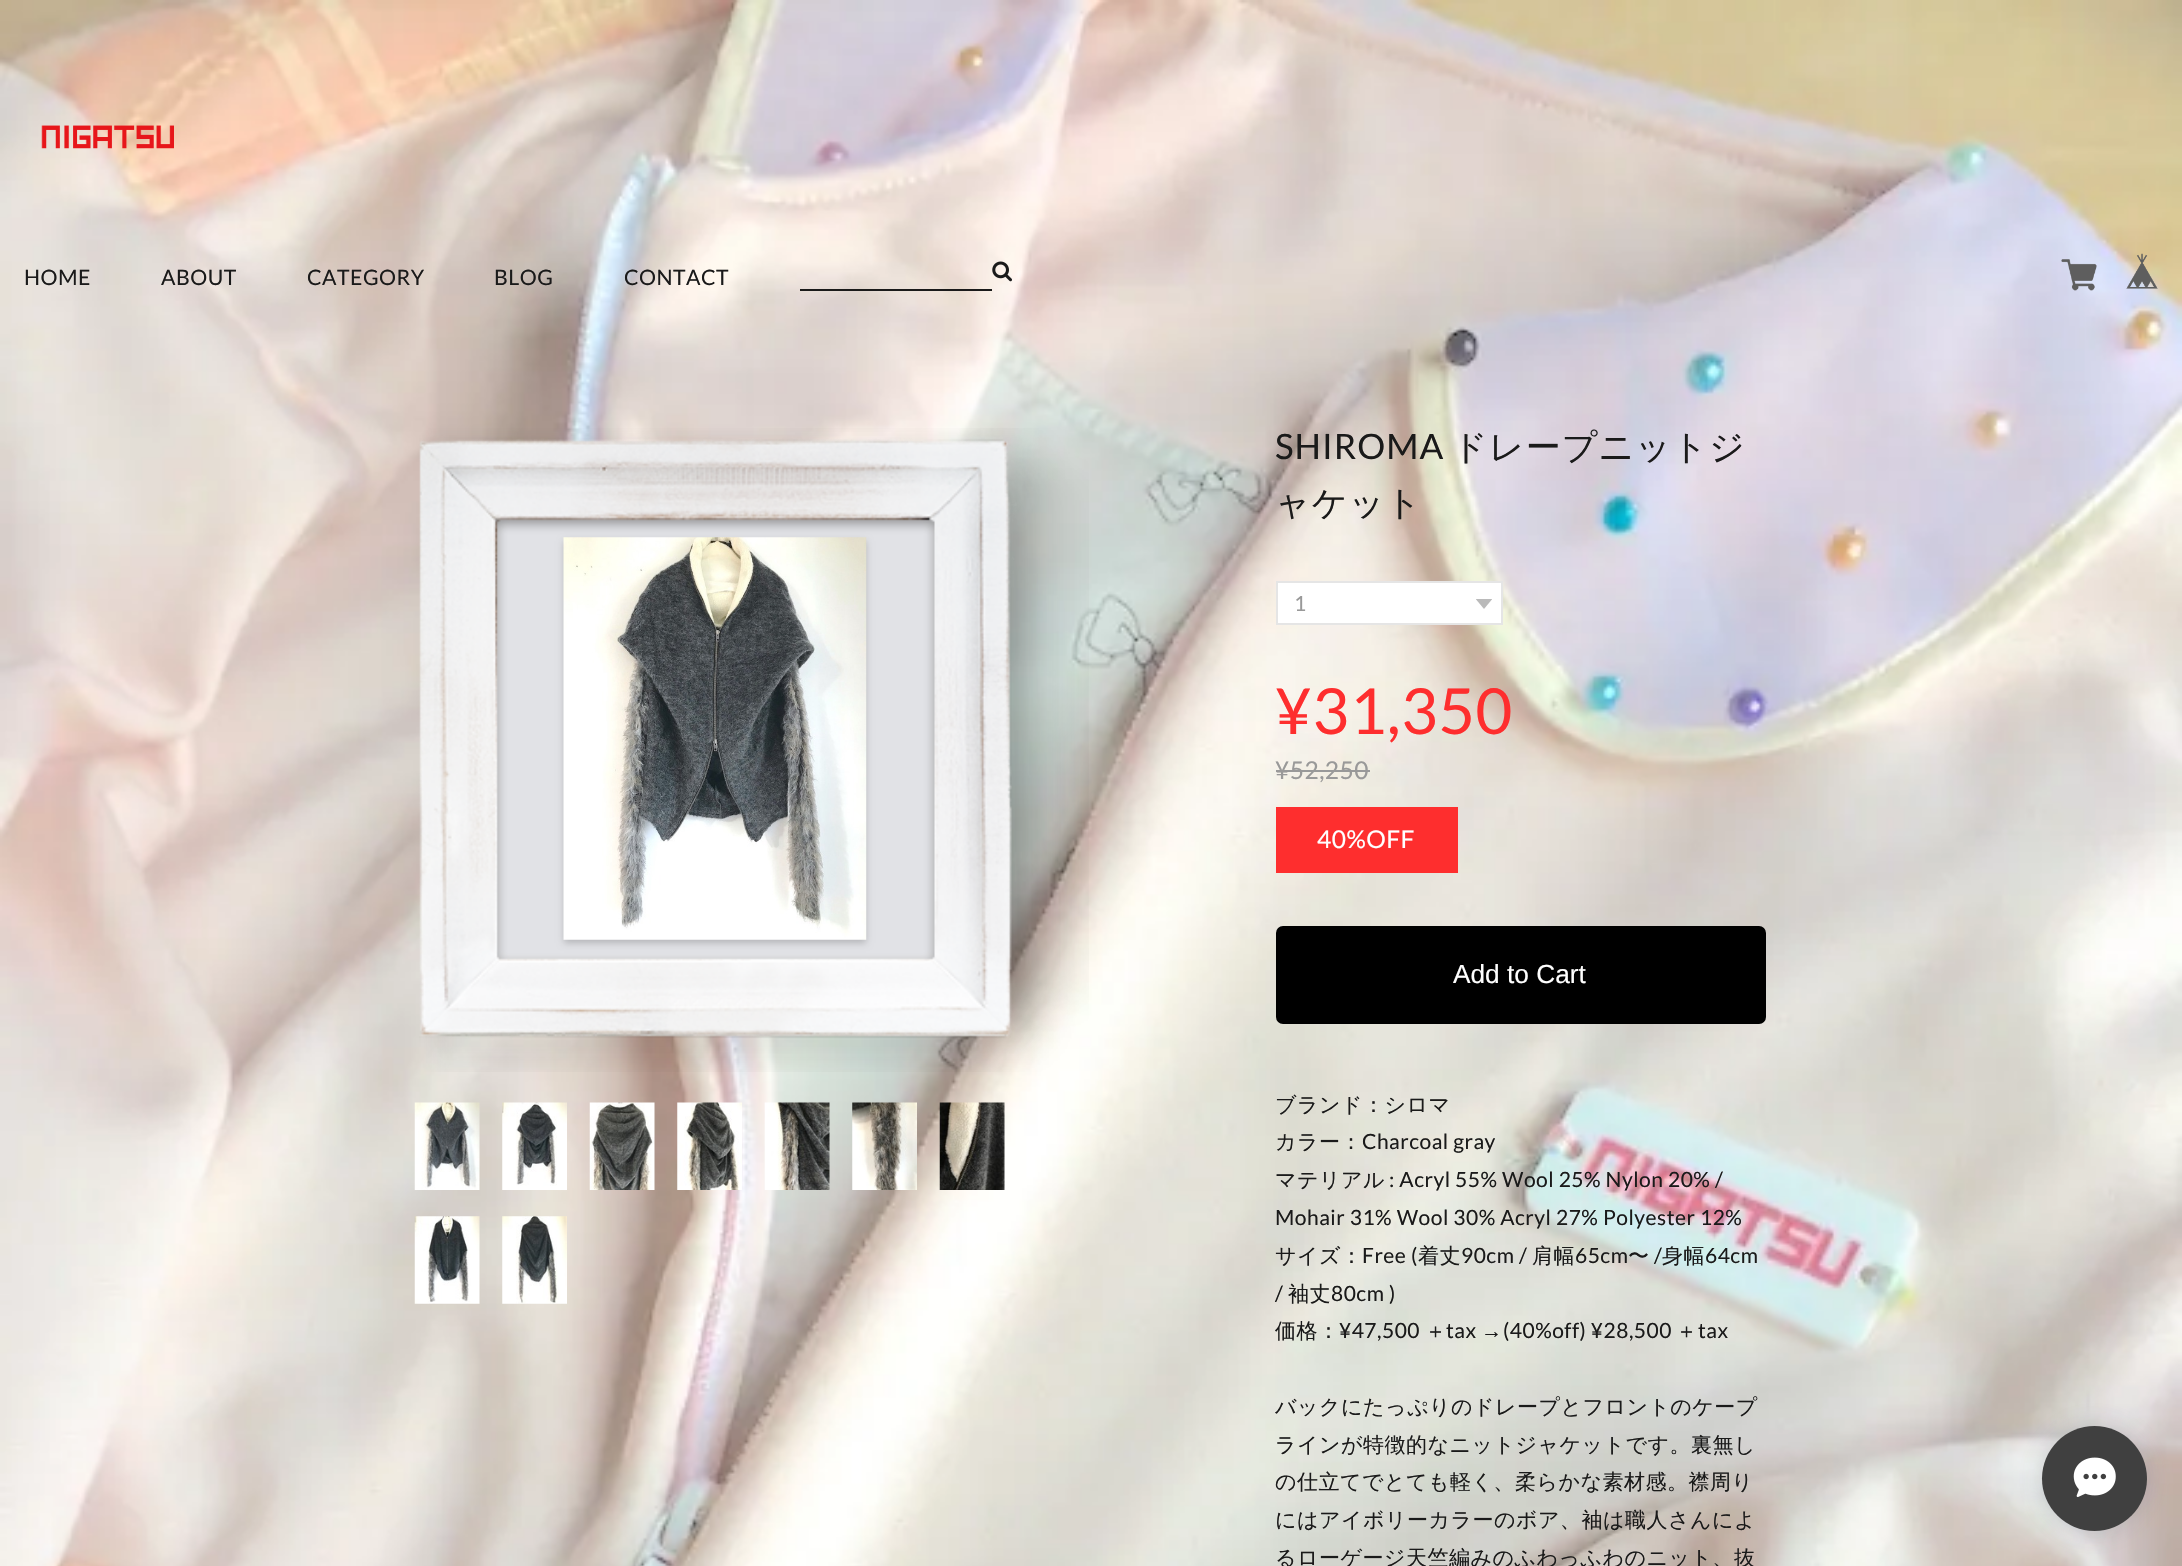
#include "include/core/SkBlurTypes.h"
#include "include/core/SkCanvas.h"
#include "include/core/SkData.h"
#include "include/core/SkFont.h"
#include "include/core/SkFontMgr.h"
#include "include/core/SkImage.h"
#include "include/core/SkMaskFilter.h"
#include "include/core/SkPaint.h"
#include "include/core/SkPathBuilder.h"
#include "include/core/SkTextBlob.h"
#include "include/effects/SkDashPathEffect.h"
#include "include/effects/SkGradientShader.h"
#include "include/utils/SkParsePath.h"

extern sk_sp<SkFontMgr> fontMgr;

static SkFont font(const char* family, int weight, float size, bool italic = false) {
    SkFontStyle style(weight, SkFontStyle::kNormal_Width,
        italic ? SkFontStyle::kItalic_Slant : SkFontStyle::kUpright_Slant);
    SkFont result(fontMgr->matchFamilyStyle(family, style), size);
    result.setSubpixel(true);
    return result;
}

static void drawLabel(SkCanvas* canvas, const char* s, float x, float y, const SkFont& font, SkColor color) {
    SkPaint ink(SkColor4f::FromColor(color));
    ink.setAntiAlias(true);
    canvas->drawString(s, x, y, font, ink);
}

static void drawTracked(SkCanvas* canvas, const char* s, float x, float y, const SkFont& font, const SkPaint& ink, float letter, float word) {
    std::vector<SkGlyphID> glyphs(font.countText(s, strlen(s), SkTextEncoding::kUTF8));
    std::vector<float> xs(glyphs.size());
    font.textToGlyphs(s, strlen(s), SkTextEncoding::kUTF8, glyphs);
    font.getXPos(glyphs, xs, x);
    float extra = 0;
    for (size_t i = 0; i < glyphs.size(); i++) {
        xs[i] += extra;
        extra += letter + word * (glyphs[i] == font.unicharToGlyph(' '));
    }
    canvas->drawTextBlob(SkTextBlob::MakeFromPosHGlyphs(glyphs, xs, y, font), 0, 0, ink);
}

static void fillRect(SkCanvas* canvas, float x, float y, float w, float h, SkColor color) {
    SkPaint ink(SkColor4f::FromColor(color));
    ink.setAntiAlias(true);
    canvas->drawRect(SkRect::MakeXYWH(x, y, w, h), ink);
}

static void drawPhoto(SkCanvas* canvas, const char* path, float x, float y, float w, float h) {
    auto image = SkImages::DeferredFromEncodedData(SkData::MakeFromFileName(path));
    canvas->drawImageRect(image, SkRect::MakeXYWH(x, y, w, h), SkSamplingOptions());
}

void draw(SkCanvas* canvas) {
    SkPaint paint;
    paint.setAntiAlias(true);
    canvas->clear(0xFFFFFFFF);
    drawPhoto(canvas, "assets/img1.png", 0, 0, 2182, 1566);
    drawPhoto(canvas, "assets/img2.png", 41, 125, 133, 24);
    drawPhoto(canvas, "assets/img3.png", 2061, 259, 36, 32);
    drawPhoto(canvas, "assets/img4.png", 2126, 253, 32, 36);
    SkFont font1 = font("Lato", 400, 21.25f);
    paint.setColor(0xFF1A1A1A);
    drawTracked(canvas, "HOME", 24, 285, font1, paint, 0.5f, 0);
    drawTracked(canvas, "ABOUT", 161, 285, font1, paint, 0.5f, 0);
    drawTracked(canvas, "CATEGORY", 307, 285, font1, paint, 0.5f, 0);
    drawTracked(canvas, "BLOG", 494, 285, font1, paint, 0.5f, 0);
    drawTracked(canvas, "CONTACT", 624, 285, font1, paint, 0.5f, 0);
    drawPhoto(canvas, "assets/img5.png", 992, 261, 20, 21);
    fillRect(canvas, 800, 289, 192, 2, 0xFF1A1A1A);
    drawPhoto(canvas, "assets/img6.png", 419, 428, 670, 644);
    paint.setColor(0x33000000);
    paint.setMaskFilter(SkMaskFilter::MakeBlur(kNormal_SkBlurStyle, 3.5f));
    canvas->drawRect(SkRect::MakeXYWH(564, 541, 302, 402), paint);
    paint.setMaskFilter(nullptr);
    drawPhoto(canvas, "assets/img7.png", 563, 537, 304, 403);
    drawPhoto(canvas, "assets/img8.png", 414, 1102, 66, 88);
    drawPhoto(canvas, "assets/img9.png", 502, 1102, 65, 88);
    drawPhoto(canvas, "assets/img10.png", 589, 1102, 66, 88);
    drawPhoto(canvas, "assets/img11.png", 677, 1102, 65, 88);
    drawPhoto(canvas, "assets/img12.png", 764, 1102, 66, 88);
    drawPhoto(canvas, "assets/img13.png", 852, 1102, 65, 88);
    drawPhoto(canvas, "assets/img14.png", 939, 1102, 66, 88);
    drawPhoto(canvas, "assets/img15.png", 414, 1216, 66, 88);
    drawPhoto(canvas, "assets/img16.png", 502, 1216, 65, 88);
    SkFont font2 = font("Lato", 400, 35);
    paint.setColor(0xFF1A1A1A);
    drawTracked(canvas, "SHIROMA", 1275, 459, font2, paint, 1, 0);
    SkFont font3 = font("WenQuanYi Zen Hei", 500, 35);
    drawTracked(canvas, "ドレープニットジ", 1452, 459, font3, paint, 1, 0);
    drawTracked(canvas, "ャケット", 1275, 515, font3, paint, 1, 0);
    fillRect(canvas, 1278, 583, 223, 40, 0xFFFFFFFF);
    drawPhoto(canvas, "assets/img17.png", 1476, 599, 16, 10);
    paint.setStroke(true);
    paint.setStrokeWidth(2);
    paint.setColor(0xFFE5E5E5);
    canvas->drawRect(SkRect::MakeXYWH(1277, 582, 225, 42), paint);
    SkFont font4 = font("Lato", 400, 21);
    drawLabel(canvas, "1", 1294, 611, font4, 0xFF999999);
    SkFont font5 = font("Lato", 400, 63.5f);
    paint.setStroke(false);
    paint.setColor(0xFFFE2E2E);
    drawTracked(canvas, "¥31,350", 1275, 734, font5, paint, 0.5f, 0);
    SkFont font6 = font("Lato", 400, 24.5f);
    paint.setColor(0xFF999999);
    drawTracked(canvas, "¥52,250", 1275, 779, font6, paint, 0.5f, 0);
    fillRect(canvas, 1276, 770, 94, 2, 0xFF999999);
    fillRect(canvas, 1276, 807, 182, 66, 0xFFFE2E2E);
    paint.setColor(0xFFFFFFFF);
    drawTracked(canvas, "40%OFF", 1317, 848, font6, paint, 0.5f, 0);
    paint.setColor(0xFF000000);
    canvas->drawRoundRect(SkRect::MakeXYWH(1277, 927, 488, 96), 6, 6, paint);
    paint.setStroke(true);
    canvas->drawRoundRect(SkRect::MakeXYWH(1277, 927, 488, 96), 6, 6, paint);
    SkFont font7 = font("Liberation Sans", 400, 26.25f);
    drawLabel(canvas, "Add to Cart", 1453, 983, font7, 0xFFFFFFFF);
    SkFont font8 = font("WenQuanYi Zen Hei", 500, 21);
    paint.setStroke(false);
    paint.setColor(0xFF1A1A1A);
    drawTracked(canvas, "ブランド：シロマ", 1275, 1112, font8, paint, 0.5f, 0);
    drawTracked(canvas, "カラー：", 1275, 1149, font8, paint, 0.5f, 0);
    drawTracked(canvas, "Charcoal gray", 1362, 1149, font4, paint, 0.5f, 0);
    drawTracked(canvas, "マテリアル", 1275, 1187, font8, paint, 0.5f, 0);
    drawTracked(canvas, ": Acryl 55% Wool 25% Nylon 20% /", 1389, 1187, font4, paint, 0.5f, 0);
    drawTracked(canvas, "Mohair 31% Wool 30% Acryl 27% Polyester 12%", 1275, 1225, font4, paint, 0.5f, 0);
    drawTracked(canvas, "サイズ：", 1275, 1263, font8, paint, 0.5f, 0);
    drawTracked(canvas, "Free (", 1362, 1263, font4, paint, 0.5f, 0);
    drawTracked(canvas, "着丈", 1418, 1263, font8, paint, 0.5f, 0);
    drawTracked(canvas, "90cm /", 1461, 1263, font4, paint, 0.5f, 0);
    drawTracked(canvas, "肩幅", 1532, 1263, font8, paint, 0.5f, 0);
    drawTracked(canvas, "65cm", 1575, 1263, font4, paint, 0.5f, 0);
    drawTracked(canvas, "〜", 1628, 1263, font8, paint, 0.5f, 0);
    drawTracked(canvas, "/", 1654, 1263, font4, paint, 0.5f, 0);
    drawTracked(canvas, "身幅", 1662, 1263, font8, paint, 0.5f, 0);
    drawTracked(canvas, "64cm", 1705, 1263, font4, paint, 0.5f, 0);
    drawTracked(canvas, "/", 1275, 1301, font4, paint, 0.5f, 0);
    drawTracked(canvas, "袖丈", 1288, 1301, font8, paint, 0.5f, 0);
    drawTracked(canvas, "80cm )", 1331, 1301, font4, paint, 0.5f, 0);
    drawTracked(canvas, "価格：", 1275, 1338, font8, paint, 0.5f, 0);
    drawTracked(canvas, "¥47,500", 1339, 1338, font4, paint, 0.5f, 0);
    drawTracked(canvas, "＋", 1425, 1338, font8, paint, 0.5f, 0);
    drawTracked(canvas, "tax", 1446, 1338, font4, paint, 0.5f, 0);
    SkFont font9 = font("Liberation Sans", 400, 21);
    drawTracked(canvas, "→", 1481, 1338, font9, paint, 0.5f, 0);
    drawTracked(canvas, "(40%off) ¥28,500", 1503, 1338, font4, paint, 0.5f, 0);
    drawTracked(canvas, "＋", 1676, 1338, font8, paint, 0.5f, 0);
    drawTracked(canvas, "tax", 1698, 1338, font4, paint, 0.5f, 0);
    drawTracked(canvas, "バックにたっぷりのドレープとフロントのケープ", 1275, 1414, font8, paint, 0.5f, 0);
    drawTracked(canvas, "ラインが特徴的なニットジャケットです。裏無し", 1275, 1452, font8, paint, 0.5f, 0);
    drawTracked(canvas, "の仕立てでとても軽く、柔らかな素材感。襟周り", 1275, 1489, font8, paint, 0.5f, 0);
    drawTracked(canvas, "にはアイボリーカラーのボア、袖は職人さんによ", 1275, 1527, font8, paint, 0.5f, 0);
    drawTracked(canvas, "るローゲージ天竺編みのふわっふわのニット、抜", 1275, 1565, font8, paint, 0.5f, 0);
    paint.setColor(0x33334258);
    paint.setMaskFilter(SkMaskFilter::MakeBlur(kNormal_SkBlurStyle, 13));
    canvas->drawRoundRect(SkRect::MakeXYWH(2042, 1426, 105, 105), 52.5f, 52.5f, paint);
    paint.setMaskFilter(nullptr);
    paint.setColor(0xFF404040);
    canvas->drawCircle(2094.5f, 1478.5f, 52.5f, paint);
    drawPhoto(canvas, "assets/img18.png", 2073, 1457, 43, 40);
}
